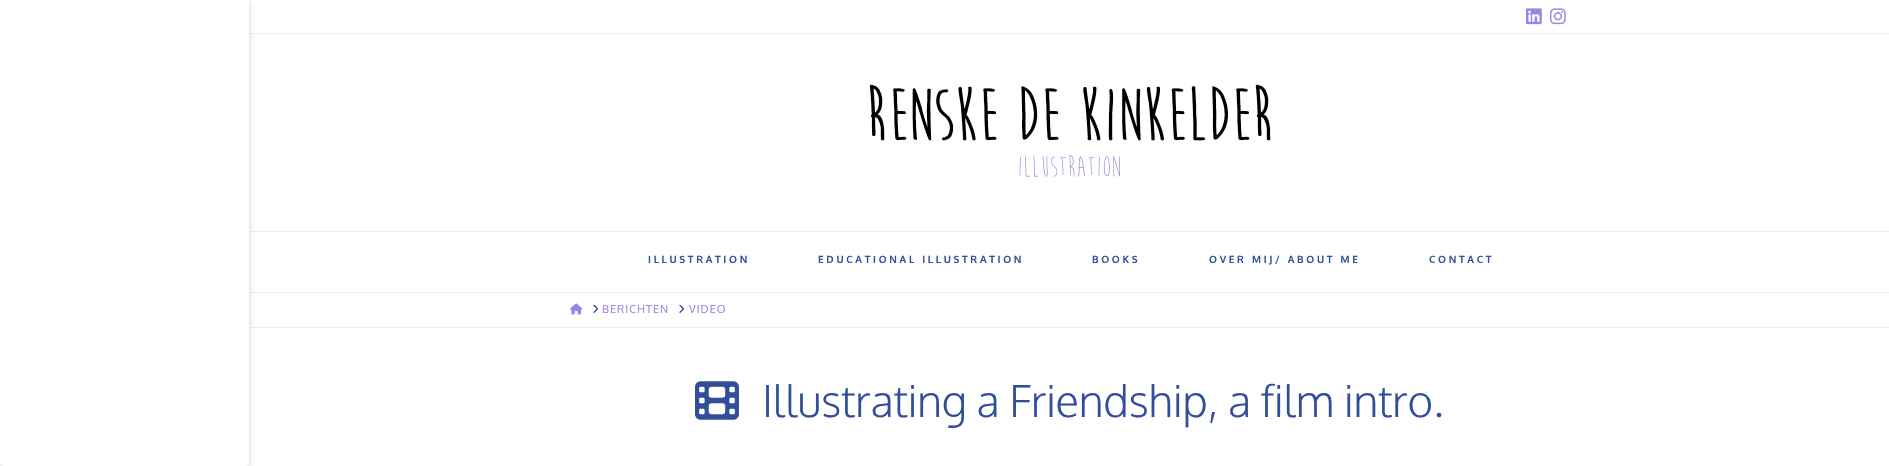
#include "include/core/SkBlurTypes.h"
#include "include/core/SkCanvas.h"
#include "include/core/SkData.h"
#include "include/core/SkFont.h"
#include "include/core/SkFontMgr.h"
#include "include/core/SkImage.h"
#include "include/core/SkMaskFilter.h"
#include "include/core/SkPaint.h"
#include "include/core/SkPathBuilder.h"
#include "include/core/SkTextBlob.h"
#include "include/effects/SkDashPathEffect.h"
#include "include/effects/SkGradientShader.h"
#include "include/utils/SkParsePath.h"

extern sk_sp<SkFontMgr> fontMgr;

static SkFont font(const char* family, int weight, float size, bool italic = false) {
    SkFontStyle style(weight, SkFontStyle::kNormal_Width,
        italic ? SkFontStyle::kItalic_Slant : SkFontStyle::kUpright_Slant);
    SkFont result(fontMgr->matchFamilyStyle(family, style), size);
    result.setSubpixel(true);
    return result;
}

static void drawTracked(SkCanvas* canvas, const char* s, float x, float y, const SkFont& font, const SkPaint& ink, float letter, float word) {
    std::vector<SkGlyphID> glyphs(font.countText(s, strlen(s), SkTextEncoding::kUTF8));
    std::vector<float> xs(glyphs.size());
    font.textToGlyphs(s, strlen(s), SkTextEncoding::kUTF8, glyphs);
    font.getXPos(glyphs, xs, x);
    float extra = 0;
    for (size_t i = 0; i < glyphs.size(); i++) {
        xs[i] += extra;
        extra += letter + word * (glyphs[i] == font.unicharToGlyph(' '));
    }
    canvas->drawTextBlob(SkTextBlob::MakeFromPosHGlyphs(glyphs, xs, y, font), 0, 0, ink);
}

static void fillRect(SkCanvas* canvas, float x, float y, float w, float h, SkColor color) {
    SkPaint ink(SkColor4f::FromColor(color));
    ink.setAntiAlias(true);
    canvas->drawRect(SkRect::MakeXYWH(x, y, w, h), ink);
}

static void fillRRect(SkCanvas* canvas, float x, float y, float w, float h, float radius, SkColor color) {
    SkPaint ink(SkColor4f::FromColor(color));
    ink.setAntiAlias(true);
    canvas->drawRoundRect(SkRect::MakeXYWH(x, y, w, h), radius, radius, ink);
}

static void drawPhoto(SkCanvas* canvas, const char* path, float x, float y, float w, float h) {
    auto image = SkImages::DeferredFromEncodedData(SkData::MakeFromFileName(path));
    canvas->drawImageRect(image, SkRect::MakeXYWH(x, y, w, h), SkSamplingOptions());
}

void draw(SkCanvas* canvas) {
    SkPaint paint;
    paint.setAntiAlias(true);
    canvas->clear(0xFFFFFFFF);
    fillRect(canvas, 250, 33, 1639, 1, 0xFFECECEC);
    fillRect(canvas, 250, 231, 1639, 1, 0xFFECECEC);
    fillRect(canvas, 250, 292, 1639, 1, 0xFFECECEC);
    fillRect(canvas, 250, 327, 1639, 1, 0xFFECECEC);
    paint.setColor(0x21000000);
    paint.setMaskFilter(SkMaskFilter::MakeBlur(kNormal_SkBlurStyle, 2.5f));
    canvas->drawRoundRect(SkRect::MakeXYWH(0, 2, 250, 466), 4, 4, paint);
    paint.setMaskFilter(nullptr);
    fillRRect(canvas, 0, 0, 250, 466, 4, 0xFFFFFFFF);
    fillRect(canvas, 249, 2, 1, 462, 0xFFECECEC);
    drawPhoto(canvas, "assets/img1.png", 1526, 8, 16, 17);
    drawPhoto(canvas, "assets/img2.png", 1550, 8, 16, 17);
    drawPhoto(canvas, "assets/img3.png", 869, 84, 402, 93);
    SkFont font1 = font("Oxygen", 700, 10);
    paint.setColor(0xFF314F99);
    drawTracked(canvas, "ILLUSTRATION", 648, 263, font1, paint, 2.7f, 0);
    drawTracked(canvas, "EDUCATIONAL ILLUSTRATION", 818, 263, font1, paint, 2.7f, 0);
    drawTracked(canvas, "BOOKS", 1092, 263, font1, paint, 2.7f, 0);
    drawTracked(canvas, "OVER MIJ/ ABOUT ME", 1209, 263, font1, paint, 2.7f, 0);
    drawTracked(canvas, "CONTACT", 1429, 263, font1, paint, 2.7f, 0);
    drawPhoto(canvas, "assets/img4.png", 570, 303, 13, 12);
    drawPhoto(canvas, "assets/img5.png", 593, 304, 6, 9);
    SkFont font2 = font("Oxygen", 400, 11);
    paint.setColor(0xFF9A84E6);
    drawTracked(canvas, "BERICHTEN", 602, 313, font2, paint, 1, 0);
    drawPhoto(canvas, "assets/img5.png", 679, 304, 6, 9);
    drawTracked(canvas, "VIDEO", 689, 313, font2, paint, 1, 0);
    drawPhoto(canvas, "assets/img6.png", 695, 381, 44, 39);
    SkFont font3 = font("Oxygen", 300, 44);
    paint.setColor(0xFF314F99);
    drawTracked(canvas, "Illustrating a Friendship, a film intro.", 762, 417, font3, paint, -0.2f, 0);
}
